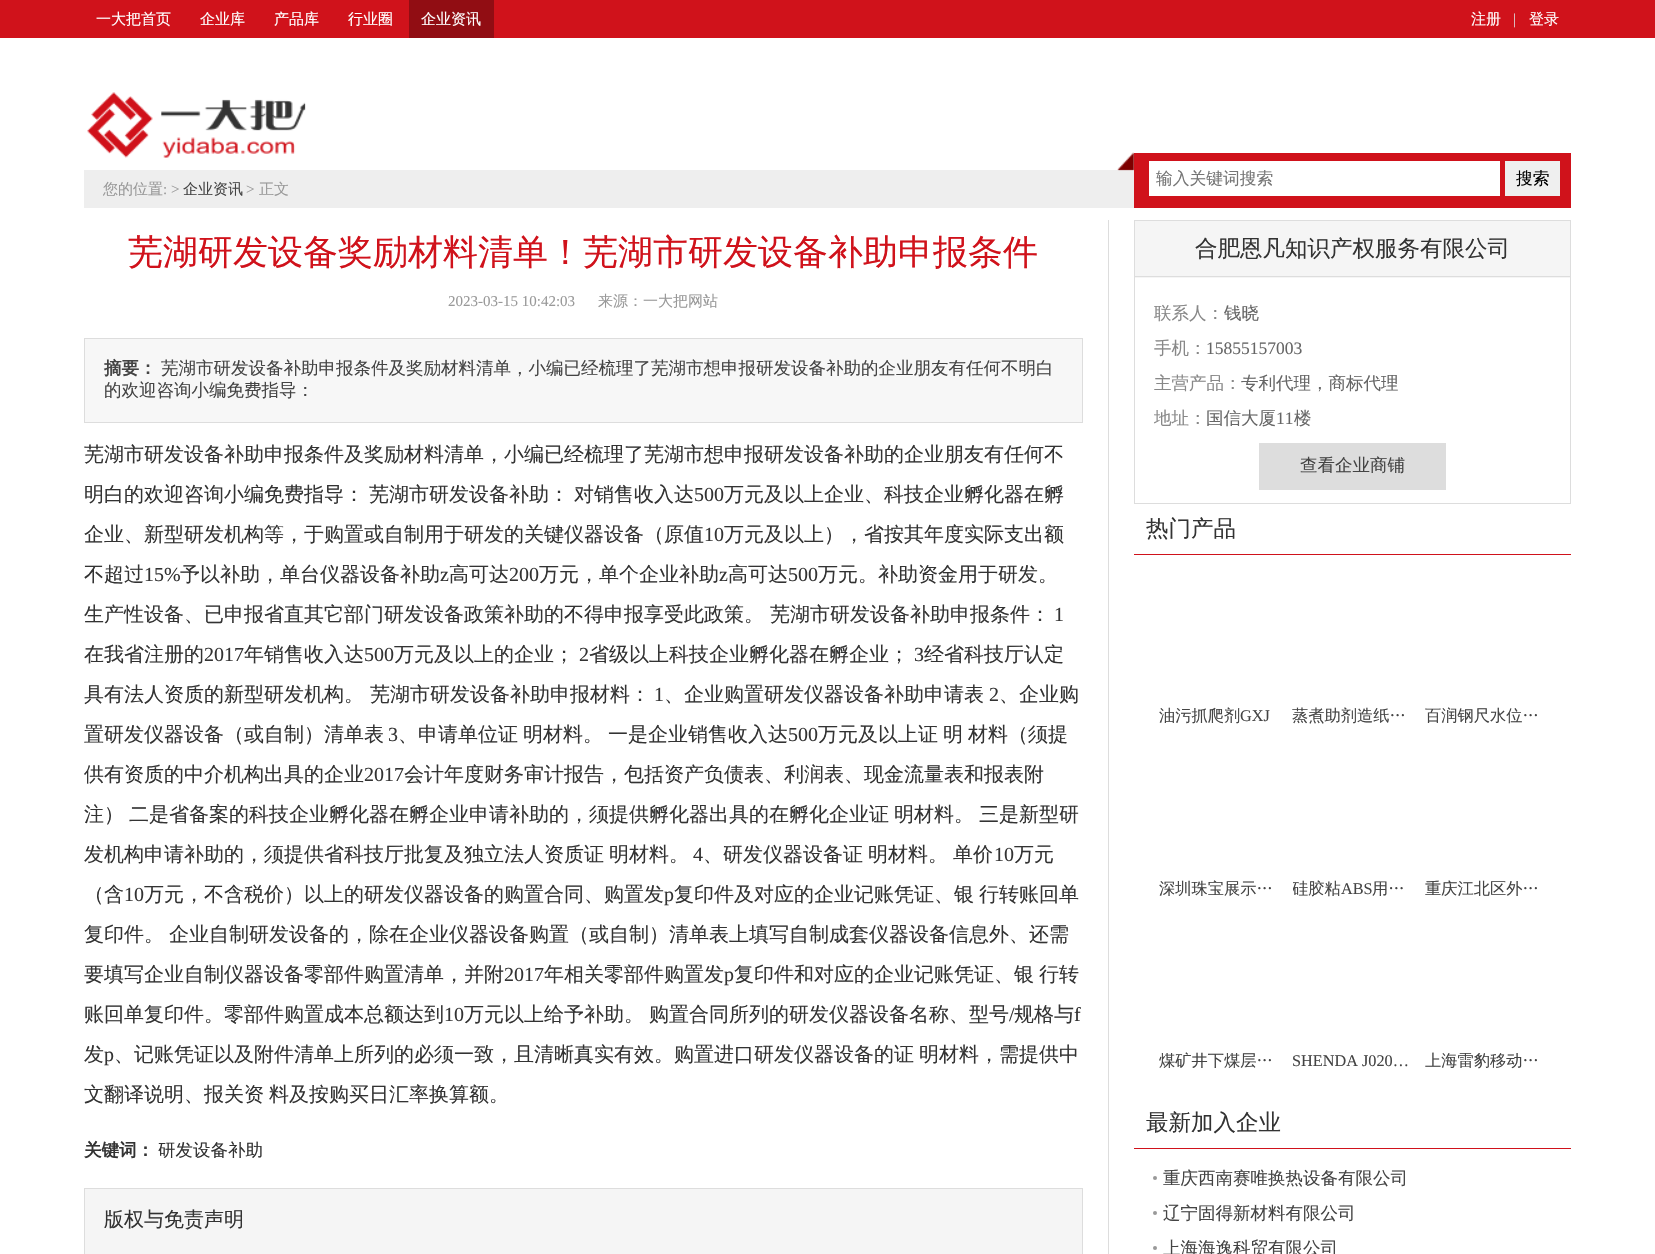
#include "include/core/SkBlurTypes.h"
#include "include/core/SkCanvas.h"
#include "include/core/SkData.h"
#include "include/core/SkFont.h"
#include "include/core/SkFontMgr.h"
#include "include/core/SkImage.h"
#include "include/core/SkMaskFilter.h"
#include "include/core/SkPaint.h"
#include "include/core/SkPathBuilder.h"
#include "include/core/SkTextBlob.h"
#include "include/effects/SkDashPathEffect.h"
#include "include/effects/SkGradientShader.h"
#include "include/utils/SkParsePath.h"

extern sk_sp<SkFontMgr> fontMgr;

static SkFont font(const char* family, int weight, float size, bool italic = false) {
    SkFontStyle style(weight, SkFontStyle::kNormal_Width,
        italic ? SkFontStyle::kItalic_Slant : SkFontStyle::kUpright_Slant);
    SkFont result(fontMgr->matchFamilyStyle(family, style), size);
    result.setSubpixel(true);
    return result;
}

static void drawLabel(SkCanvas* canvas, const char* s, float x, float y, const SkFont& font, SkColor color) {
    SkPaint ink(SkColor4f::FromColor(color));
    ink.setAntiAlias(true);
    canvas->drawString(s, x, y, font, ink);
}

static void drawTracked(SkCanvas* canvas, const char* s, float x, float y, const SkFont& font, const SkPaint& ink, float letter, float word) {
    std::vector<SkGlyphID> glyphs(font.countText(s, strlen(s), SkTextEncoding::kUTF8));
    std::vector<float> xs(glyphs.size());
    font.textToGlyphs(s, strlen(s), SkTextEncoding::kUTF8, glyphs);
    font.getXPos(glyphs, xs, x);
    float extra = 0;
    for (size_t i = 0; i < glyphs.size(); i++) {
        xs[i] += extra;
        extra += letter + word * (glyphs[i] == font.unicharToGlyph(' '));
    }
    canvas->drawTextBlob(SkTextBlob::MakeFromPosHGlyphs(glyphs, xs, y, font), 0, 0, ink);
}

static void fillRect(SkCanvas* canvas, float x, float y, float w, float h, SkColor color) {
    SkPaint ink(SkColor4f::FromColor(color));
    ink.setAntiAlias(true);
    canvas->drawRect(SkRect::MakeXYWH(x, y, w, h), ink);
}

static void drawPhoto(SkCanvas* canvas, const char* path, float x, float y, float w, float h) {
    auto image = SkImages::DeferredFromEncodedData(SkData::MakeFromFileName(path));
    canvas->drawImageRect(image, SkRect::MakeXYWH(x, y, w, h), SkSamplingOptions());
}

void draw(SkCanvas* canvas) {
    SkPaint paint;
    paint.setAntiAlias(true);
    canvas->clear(0xFFFFFFFF);
    fillRect(canvas, 0, 0, 1655, 38, 0xFFD0121B);
    SkFont font1 = font("WenQuanYi Zen Hei", 500, 15);
    drawLabel(canvas, "一大把首页", 96, 24, font1, 0xFFFFFFFF);
    drawLabel(canvas, "企业库", 200, 24, font1, 0xFFFFFFFF);
    drawLabel(canvas, "产品库", 274, 24, font1, 0xFFFFFFFF);
    drawLabel(canvas, "行业圈", 348, 24, font1, 0xFFFFFFFF);
    fillRect(canvas, 409, 0, 85, 38, 0xFF910D13);
    drawLabel(canvas, "企业资讯", 421, 24, font1, 0xFFFFFFFF);
    drawLabel(canvas, "注册", 1471, 24, font1, 0xFFFFFFFF);
    SkFont font2 = font("Liberation Serif", 400, 15);
    drawLabel(canvas, "|", 1513, 24, font2, 0xFFDDDDDD);
    drawLabel(canvas, "登录", 1529, 24, font1, 0xFFFFFFFF);
    drawPhoto(canvas, "assets/img1.png", 87, 92, 219, 66);
    fillRect(canvas, 84, 170, 1050, 38, 0xFFEEEEEE);
    drawPhoto(canvas, "assets/img2.png", 1117, 152, 17, 19);
    fillRect(canvas, 1134, 153, 437, 55, 0xFFD0121B);
    fillRect(canvas, 1149, 161, 351, 35, 0xFFFFFFFF);
    SkFont font3 = font("WenQuanYi Zen Hei", 500, 16.75f);
    drawLabel(canvas, "输入关键词搜索", 1156, 184, font3, 0xFF757575);
    fillRect(canvas, 1505, 161, 55, 35, 0xFFEFEFEF);
    drawLabel(canvas, "搜索", 1516, 184, font3, 0xFF000000);
    drawLabel(canvas, "您的位置", 103, 194, font1, 0xFF999999);
    drawLabel(canvas, ": >", 163, 194, font2, 0xFF999999);
    drawLabel(canvas, "企业资讯", 183, 194, font1, 0xFF444444);
    drawLabel(canvas, ">", 246, 194, font2, 0xFF999999);
    drawLabel(canvas, "正文", 259, 194, font1, 0xFF999999);
    SkFont font4 = font("WenQuanYi Zen Hei", 500, 35);
    drawLabel(canvas, "芜湖研发设备奖励材料清单！芜湖市研发设备补助申报条件", 128, 264, font4, 0xFFD0121B);
    drawLabel(canvas, "2023-03-15 10:42:03", 448, 306, font2, 0xFF999999);
    drawLabel(canvas, "来源：一大把网站", 598, 306, font1, 0xFF999999);
    paint.setColor(0xFFF7F7F7);
    canvas->drawRect(SkRect::MakeXYWH(84.5f, 338.5f, 998, 84), paint);
    paint.setStroke(true);
    paint.setStrokeWidth(1);
    paint.setColor(0xFFDDDDDD);
    canvas->drawRect(SkRect::MakeXYWH(84.5f, 338.5f, 998, 84), paint);
    SkFont font5 = font("WenQuanYi Zen Hei", 700, 17.5f);
    drawLabel(canvas, "摘要：", 104, 374, font5, 0xFF444444);
    SkFont font6 = font("WenQuanYi Zen Hei", 500, 17.5f);
    drawLabel(canvas, "芜湖市研发设备补助申报条件及奖励材料清单，小编已经梳理了芜湖市想申报研发设备补助的企业朋友有任何不明白", 161, 374, font6, 0xFF444444);
    drawLabel(canvas, "的欢迎咨询小编免费指导：", 104, 396, font6, 0xFF444444);
    SkFont font7 = font("WenQuanYi Zen Hei", 500, 20);
    drawLabel(canvas, "芜湖市研发设备补助申报条件及奖励材料清单，小编已经梳理了芜湖市想申报研发设备补助的企业朋友有任何不", 84, 461, font7, 0xFF333333);
    paint.setStroke(false);
    paint.setColor(0xFF333333);
    drawTracked(canvas, "明白的欢迎咨询小编免费指导： 芜湖市研发设备补助： 对销售收入达", 84, 501, font7, paint, 0, -1);
    SkFont font8 = font("Liberation Serif", 400, 20);
    drawLabel(canvas, "500", 694, 501, font8, 0xFF333333);
    drawLabel(canvas, "万元及以上企业、科技企业孵化器在孵", 724, 501, font7, 0xFF333333);
    drawLabel(canvas, "企业、新型研发机构等，于购置或自制用于研发的关键仪器设备（原值", 84, 541, font7, 0xFF333333);
    drawLabel(canvas, "10", 704, 541, font8, 0xFF333333);
    drawLabel(canvas, "万元及以上），省按其年度实际支出额", 724, 541, font7, 0xFF333333);
    drawLabel(canvas, "不超过", 84, 581, font7, 0xFF333333);
    drawLabel(canvas, "15%", 144, 581, font8, 0xFF333333);
    drawLabel(canvas, "予以补助，单台仪器设备补助", 180, 581, font7, 0xFF333333);
    drawLabel(canvas, "z", 440, 581, font8, 0xFF333333);
    drawLabel(canvas, "高可达", 449, 581, font7, 0xFF333333);
    drawLabel(canvas, "200", 509, 581, font8, 0xFF333333);
    drawLabel(canvas, "万元，单个企业补助", 539, 581, font7, 0xFF333333);
    drawLabel(canvas, "z", 719, 581, font8, 0xFF333333);
    drawLabel(canvas, "高可达", 728, 581, font7, 0xFF333333);
    drawLabel(canvas, "500", 788, 581, font8, 0xFF333333);
    drawLabel(canvas, "万元。补助资金用于研发。", 818, 581, font7, 0xFF333333);
    drawLabel(canvas, "生产性设备、已申报省直其它部门研发设备政策补助的不得申报享受此政策。 芜湖市研发设备补助申报条件：", 84, 621, font7, 0xFF333333);
    drawLabel(canvas, "1", 1054, 621, font8, 0xFF333333);
    drawLabel(canvas, "在我省注册的", 84, 661, font7, 0xFF333333);
    drawLabel(canvas, "2017", 204, 661, font8, 0xFF333333);
    drawLabel(canvas, "年销售收入达", 244, 661, font7, 0xFF333333);
    drawLabel(canvas, "500", 364, 661, font8, 0xFF333333);
    drawLabel(canvas, "万元及以上的企业；", 394, 661, font7, 0xFF333333);
    drawLabel(canvas, "2", 579, 661, font8, 0xFF333333);
    drawLabel(canvas, "省级以上科技企业孵化器在孵企业；", 589, 661, font7, 0xFF333333);
    drawLabel(canvas, "3", 914, 661, font8, 0xFF333333);
    drawLabel(canvas, "经省科技厅认定", 924, 661, font7, 0xFF333333);
    drawLabel(canvas, "具有法人资质的新型研发机构。 芜湖市研发设备补助申报材料：", 84, 701, font7, 0xFF333333);
    drawLabel(canvas, "1", 654, 701, font8, 0xFF333333);
    drawLabel(canvas, "、企业购置研发仪器设备补助申请表", 664, 701, font7, 0xFF333333);
    drawLabel(canvas, "2", 989, 701, font8, 0xFF333333);
    drawLabel(canvas, "、企业购", 999, 701, font7, 0xFF333333);
    drawLabel(canvas, "置研发仪器设备（或自制）清单表", 84, 741, font7, 0xFF333333);
    drawLabel(canvas, "3", 388, 741, font8, 0xFF333333);
    drawTracked(canvas, "、申请单位证 明材料。 一是企业销售收入达", 398, 741, font7, paint, 0, -1);
    drawLabel(canvas, "500", 788, 741, font8, 0xFF333333);
    drawTracked(canvas, "万元及以上证 明 材料（须提", 818, 741, font7, paint, 0, -1);
    drawLabel(canvas, "供有资质的中介机构出具的企业", 84, 781, font7, 0xFF333333);
    drawLabel(canvas, "2017", 364, 781, font8, 0xFF333333);
    drawLabel(canvas, "会计年度财务审计报告，包括资产负债表、利润表、现金流量表和报表附", 404, 781, font7, 0xFF333333);
    drawTracked(canvas, "注） 二是省备案的科技企业孵化器在孵企业申请补助的，须提供孵化器出具的在孵化企业证 明材料。 三是新型研", 84, 821, font7, paint, 0, -1);
    drawTracked(canvas, "发机构申请补助的，须提供省科技厅批复及独立法人资质证 明材料。", 84, 861, font7, paint, 0, -1);
    drawLabel(canvas, "4", 693, 861, font8, 0xFF333333);
    drawTracked(canvas, "、研发仪器设备证 明材料。 单价", 703, 861, font7, paint, 0, -1);
    drawLabel(canvas, "10", 994, 861, font8, 0xFF333333);
    drawLabel(canvas, "万元", 1014, 861, font7, 0xFF333333);
    drawLabel(canvas, "（含", 84, 901, font7, 0xFF333333);
    drawLabel(canvas, "10", 124, 901, font8, 0xFF333333);
    drawLabel(canvas, "万元，不含税价）以上的研发仪器设备的购置合同、购置发", 144, 901, font7, 0xFF333333);
    drawLabel(canvas, "p", 664, 901, font8, 0xFF333333);
    drawTracked(canvas, "复印件及对应的企业记账凭证、银 行转账回单", 674, 901, font7, paint, 0, -1);
    drawTracked(canvas, "复印件。 企业自制研发设备的，除在企业仪器设备购置（或自制）清单表上填写自制成套仪器设备信息外、还需", 84, 941, font7, paint, 0, -1);
    drawLabel(canvas, "要填写企业自制仪器设备零部件购置清单，并附", 84, 981, font7, 0xFF333333);
    drawLabel(canvas, "2017", 504, 981, font8, 0xFF333333);
    drawLabel(canvas, "年相关零部件购置发", 544, 981, font7, 0xFF333333);
    drawLabel(canvas, "p", 724, 981, font8, 0xFF333333);
    drawTracked(canvas, "复印件和对应的企业记账凭证、银 行转", 734, 981, font7, paint, 0, -1);
    drawLabel(canvas, "账回单复印件。零部件购置成本总额达到", 84, 1021, font7, 0xFF333333);
    drawLabel(canvas, "10", 444, 1021, font8, 0xFF333333);
    drawLabel(canvas, "万元以上给予补助。", 464, 1021, font7, 0xFF333333);
    drawLabel(canvas, "购置合同所列的研发仪器设备名称、型号", 649, 1021, font7, 0xFF333333);
    drawLabel(canvas, "/", 1009, 1021, font8, 0xFF333333);
    drawLabel(canvas, "规格与", 1014, 1021, font7, 0xFF333333);
    drawLabel(canvas, "f", 1074, 1021, font8, 0xFF333333);
    drawLabel(canvas, "发", 84, 1061, font7, 0xFF333333);
    drawLabel(canvas, "p", 104, 1061, font8, 0xFF333333);
    drawTracked(canvas, "、记账凭证以及附件清单上所列的必须一致，且清晰真实有效。购置进口研发仪器设备的证 明材料，需提供中", 114, 1061, font7, paint, 0, -1);
    drawTracked(canvas, "文翻译说明、报关资 料及按购买日汇率换算额。", 84, 1101, font7, paint, 0, -1);
    drawLabel(canvas, "关键词：", 84, 1156, font5, 0xFF333333);
    drawLabel(canvas, "研发设备补助", 158, 1156, font6, 0xFF333333);
    paint.setColor(0xFFF5F5F5);
    canvas->drawRect(SkRect::MakeXYWH(84.5f, 1188.5f, 998, 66), paint);
    paint.setStroke(true);
    paint.setColor(0xFFDDDDDD);
    canvas->drawRect(SkRect::MakeXYWH(84.5f, 1188.5f, 998, 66), paint);
    drawLabel(canvas, "版权与免责声明", 104, 1226, font7, 0xFF333333);
    fillRect(canvas, 1108, 220, 1, 1034, 0xFFDDDDDD);
    canvas->drawRect(SkRect::MakeXYWH(1134.5f, 220.5f, 436, 283), paint);
    fillRect(canvas, 1135, 221, 435, 57, 0xFFF5F5F5);
    fillRect(canvas, 1135, 276, 435, 1, 0xFFDDDDDD);
    SkFont font9 = font("WenQuanYi Zen Hei", 500, 22.5f);
    drawLabel(canvas, "合肥恩凡知识产权服务有限公司", 1195, 256, font9, 0xFF333333);
    drawLabel(canvas, "联系人：", 1154, 319, font6, 0xFF888888);
    drawLabel(canvas, "钱晓", 1224, 319, font6, 0xFF666666);
    drawLabel(canvas, "手机：", 1154, 354, font6, 0xFF888888);
    SkFont font10 = font("Liberation Serif", 400, 17.5f);
    drawLabel(canvas, "15855157003", 1206, 354, font10, 0xFF666666);
    drawLabel(canvas, "主营产品：", 1154, 389, font6, 0xFF888888);
    drawLabel(canvas, "专利代理，商标代理", 1241, 389, font6, 0xFF666666);
    drawLabel(canvas, "地址：", 1154, 424, font6, 0xFF888888);
    drawLabel(canvas, "国信大厦", 1206, 424, font6, 0xFF666666);
    drawLabel(canvas, "11", 1276, 424, font10, 0xFF666666);
    drawLabel(canvas, "楼", 1294, 424, font6, 0xFF666666);
    fillRect(canvas, 1259, 443, 187, 47, 0xFFDDDDDD);
    drawLabel(canvas, "查看企业商铺", 1300, 471, font6, 0xFF444444);
    fillRect(canvas, 1134, 554, 437, 1, 0xFFD0121B);
    drawLabel(canvas, "热门产品", 1146, 536, font9, 0xFF333333);
    SkFont font11 = font("WenQuanYi Zen Hei", 500, 16.25f);
    drawLabel(canvas, "油污抓爬剂", 1159, 721, font11, 0xFF444444);
    SkFont font12 = font("Liberation Serif", 400, 16.25f);
    drawLabel(canvas, "GXJ", 1240, 721, font12, 0xFF444444);
    drawLabel(canvas, "蒸煮助剂造纸…", 1292, 721, font11, 0xFF444444);
    drawLabel(canvas, "百润钢尺水位…", 1425, 721, font11, 0xFF444444);
    drawLabel(canvas, "深圳珠宝展示…", 1159, 894, font11, 0xFF444444);
    canvas->save();
    canvas->clipRect(SkRect::MakeXYWH(1293, 871, 120, 35));
    drawLabel(canvas, "硅胶粘", 1292, 894, font11, 0xFF444444);
    canvas->restore();
    drawLabel(canvas, "ABS", 1341, 894, font12, 0xFF444444);
    drawLabel(canvas, "用…", 1372, 894, font11, 0xFF444444);
    drawLabel(canvas, "重庆江北区外…", 1425, 894, font11, 0xFF444444);
    drawLabel(canvas, "煤矿井下煤层…", 1159, 1066, font11, 0xFF444444);
    drawLabel(canvas, "SHENDA J020…", 1292, 1066, font12, 0xFF444444);
    drawLabel(canvas, "上海雷豹移动…", 1425, 1066, font11, 0xFF444444);
    fillRect(canvas, 1134, 1148, 437, 1, 0xFFD0121B);
    drawLabel(canvas, "最新加入企业", 1146, 1130, font9, 0xFF333333);
    paint.setStroke(false);
    paint.setColor(0xFF999999);
    canvas->drawCircle(1155, 1178, 2, paint);
    drawLabel(canvas, "重庆西南赛唯换热设备有限公司", 1163, 1184, font6, 0xFF444444);
    canvas->drawCircle(1155, 1213, 2, paint);
    drawLabel(canvas, "辽宁固得新材料有限公司", 1163, 1219, font6, 0xFF444444);
    canvas->drawCircle(1155, 1248, 2, paint);
    drawLabel(canvas, "上海海逸科贸有限公司", 1163, 1254, font6, 0xFF444444);
}
